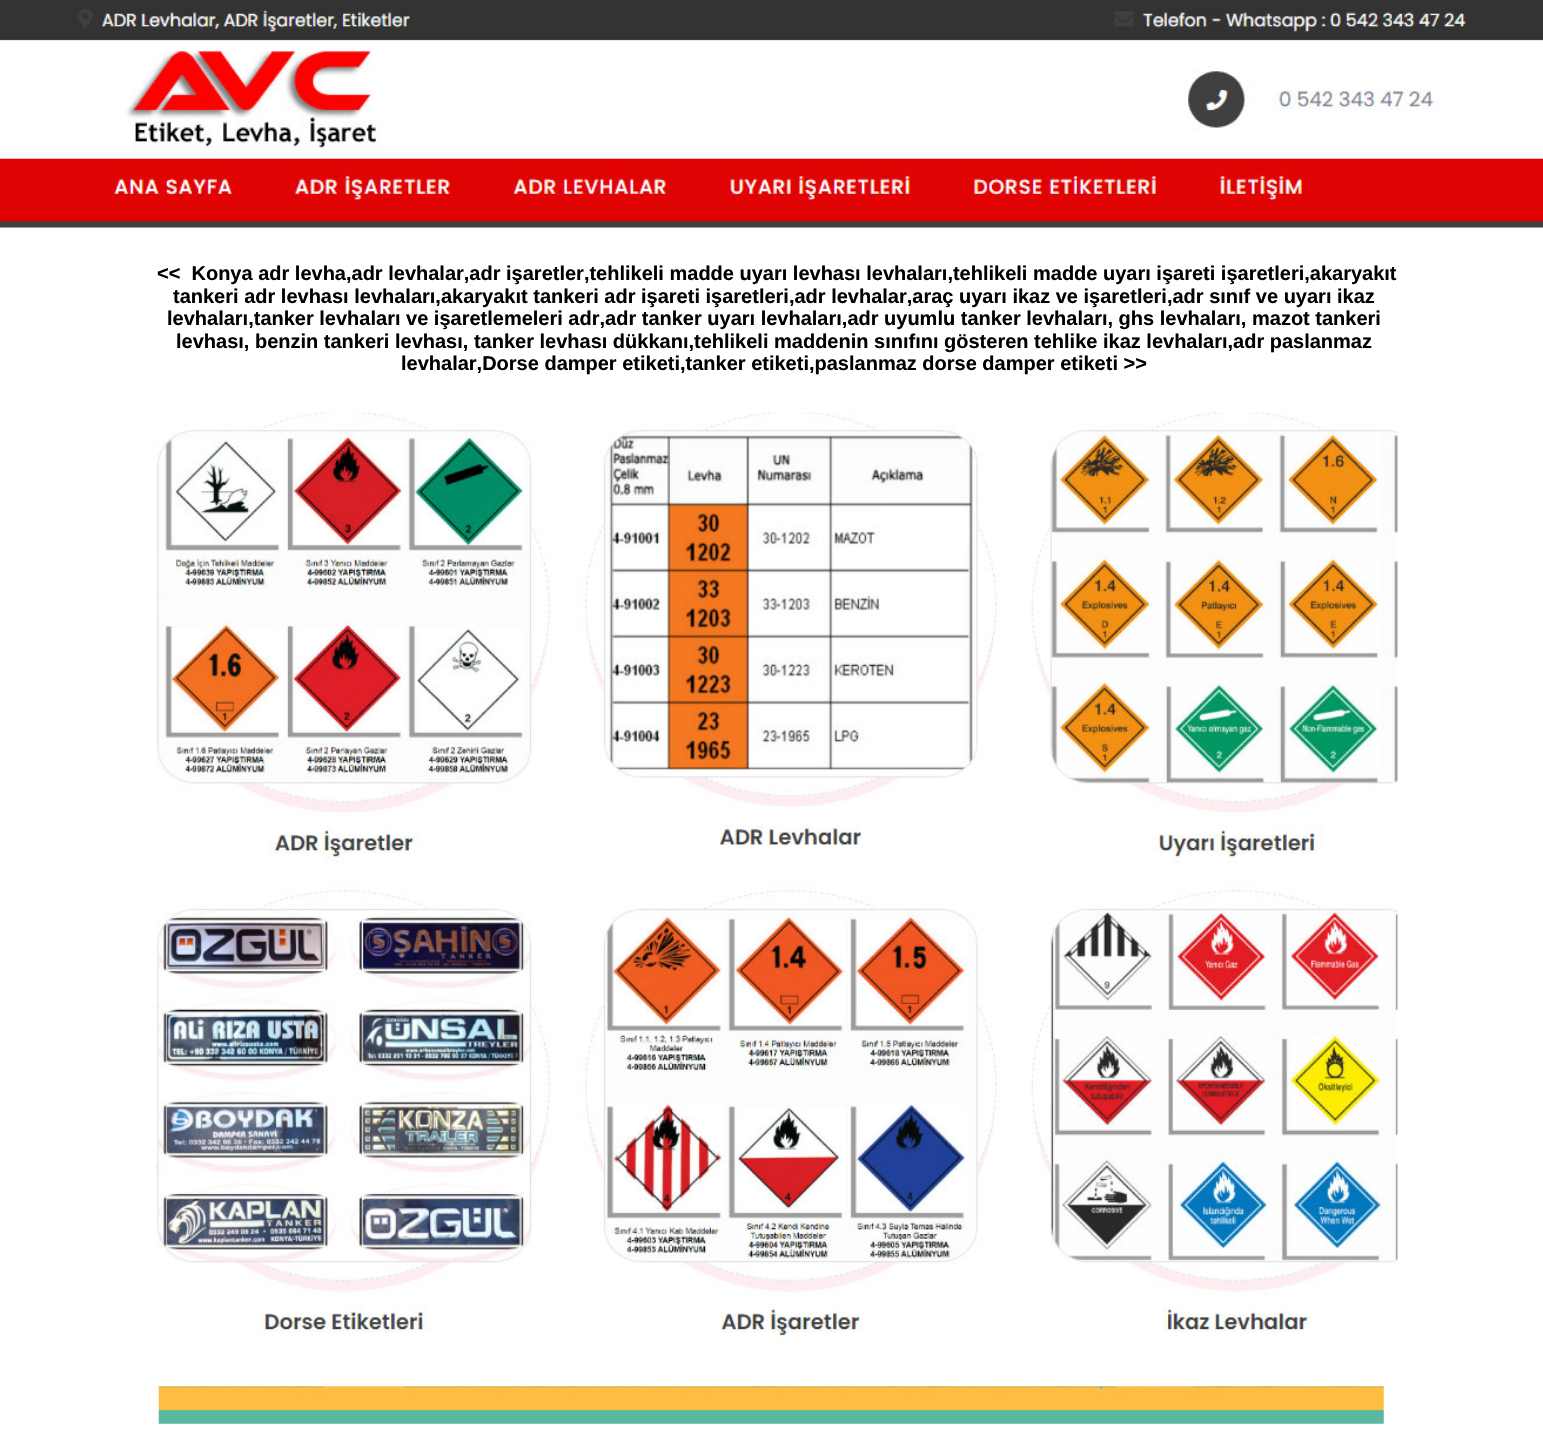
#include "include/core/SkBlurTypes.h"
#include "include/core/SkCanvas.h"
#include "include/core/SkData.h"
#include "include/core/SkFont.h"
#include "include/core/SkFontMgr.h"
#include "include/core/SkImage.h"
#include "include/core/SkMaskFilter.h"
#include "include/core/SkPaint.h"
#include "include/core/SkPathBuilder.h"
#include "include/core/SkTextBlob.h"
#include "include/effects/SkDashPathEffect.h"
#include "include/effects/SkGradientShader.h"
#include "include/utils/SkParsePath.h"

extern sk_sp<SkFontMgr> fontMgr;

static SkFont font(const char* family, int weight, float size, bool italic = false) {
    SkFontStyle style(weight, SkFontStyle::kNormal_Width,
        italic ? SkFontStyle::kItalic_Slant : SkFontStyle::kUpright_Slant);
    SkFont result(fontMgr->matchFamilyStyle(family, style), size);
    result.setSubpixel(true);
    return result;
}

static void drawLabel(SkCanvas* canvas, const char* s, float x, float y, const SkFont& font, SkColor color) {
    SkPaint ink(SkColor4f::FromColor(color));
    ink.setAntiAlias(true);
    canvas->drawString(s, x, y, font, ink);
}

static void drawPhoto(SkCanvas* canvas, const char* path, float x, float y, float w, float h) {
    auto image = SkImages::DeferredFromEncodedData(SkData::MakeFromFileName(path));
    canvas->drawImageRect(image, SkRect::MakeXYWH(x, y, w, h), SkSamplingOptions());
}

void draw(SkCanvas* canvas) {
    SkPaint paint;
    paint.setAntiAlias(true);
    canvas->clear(0xFFFFFFFF);
    drawPhoto(canvas, "assets/img1.png", 0, 0, 1543, 228);
    SkFont font1 = font("Liberation Sans", 700, 20);
    drawLabel(canvas, "<<  Konya adr levha,adr levhalar,adr işaretler,tehlikeli madde uyarı levhası levhaları,tehlikeli madde uyarı işareti işaretleri,akaryakıt", 157, 280, font1, 0xFF000000);
    drawLabel(canvas, "tankeri adr levhası levhaları,akaryakıt tankeri adr işareti işaretleri,adr levhalar,araç uyarı ikaz ve işaretleri,adr sınıf ve uyarı ikaz", 173, 303, font1, 0xFF000000);
    drawLabel(canvas, "levhaları,tanker levhaları ve işaretlemeleri adr,adr tanker uyarı levhaları,adr uyumlu tanker levhaları, ghs levhaları, mazot tankeri", 167, 325, font1, 0xFF000000);
    drawLabel(canvas, "levhası, benzin tankeri levhası, tanker levhası dükkanı,tehlikeli maddenin sınıfını gösteren tehlike ikaz levhaları,adr paslanmaz", 176, 348, font1, 0xFF000000);
    drawLabel(canvas, "levhalar,Dorse damper etiketi,tanker etiketi,paslanmaz dorse damper etiketi >>", 401, 370, font1, 0xFF000000);
    drawPhoto(canvas, "assets/img2.png", 156, 412, 1242, 930);
    drawPhoto(canvas, "assets/img3.png", 158, 1386, 1226, 38);
}
